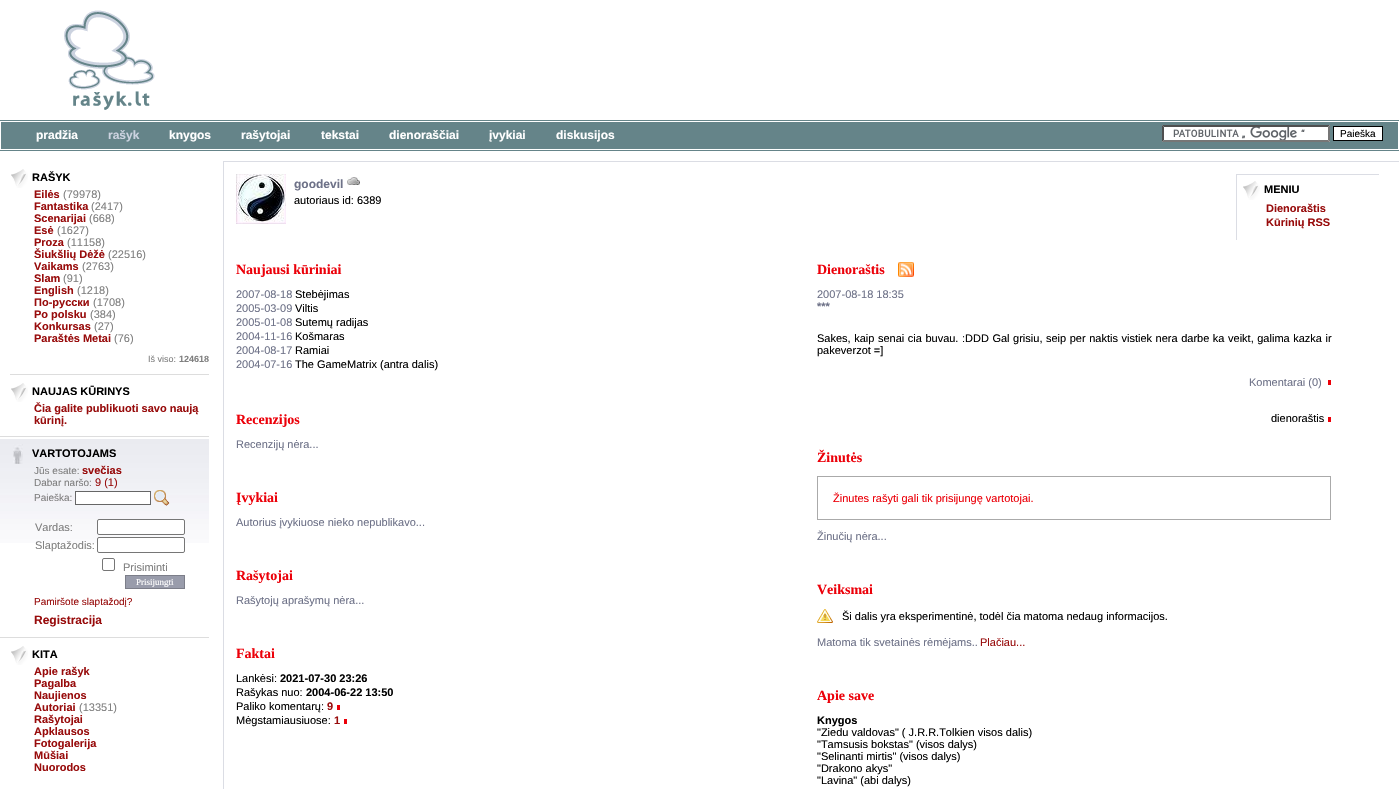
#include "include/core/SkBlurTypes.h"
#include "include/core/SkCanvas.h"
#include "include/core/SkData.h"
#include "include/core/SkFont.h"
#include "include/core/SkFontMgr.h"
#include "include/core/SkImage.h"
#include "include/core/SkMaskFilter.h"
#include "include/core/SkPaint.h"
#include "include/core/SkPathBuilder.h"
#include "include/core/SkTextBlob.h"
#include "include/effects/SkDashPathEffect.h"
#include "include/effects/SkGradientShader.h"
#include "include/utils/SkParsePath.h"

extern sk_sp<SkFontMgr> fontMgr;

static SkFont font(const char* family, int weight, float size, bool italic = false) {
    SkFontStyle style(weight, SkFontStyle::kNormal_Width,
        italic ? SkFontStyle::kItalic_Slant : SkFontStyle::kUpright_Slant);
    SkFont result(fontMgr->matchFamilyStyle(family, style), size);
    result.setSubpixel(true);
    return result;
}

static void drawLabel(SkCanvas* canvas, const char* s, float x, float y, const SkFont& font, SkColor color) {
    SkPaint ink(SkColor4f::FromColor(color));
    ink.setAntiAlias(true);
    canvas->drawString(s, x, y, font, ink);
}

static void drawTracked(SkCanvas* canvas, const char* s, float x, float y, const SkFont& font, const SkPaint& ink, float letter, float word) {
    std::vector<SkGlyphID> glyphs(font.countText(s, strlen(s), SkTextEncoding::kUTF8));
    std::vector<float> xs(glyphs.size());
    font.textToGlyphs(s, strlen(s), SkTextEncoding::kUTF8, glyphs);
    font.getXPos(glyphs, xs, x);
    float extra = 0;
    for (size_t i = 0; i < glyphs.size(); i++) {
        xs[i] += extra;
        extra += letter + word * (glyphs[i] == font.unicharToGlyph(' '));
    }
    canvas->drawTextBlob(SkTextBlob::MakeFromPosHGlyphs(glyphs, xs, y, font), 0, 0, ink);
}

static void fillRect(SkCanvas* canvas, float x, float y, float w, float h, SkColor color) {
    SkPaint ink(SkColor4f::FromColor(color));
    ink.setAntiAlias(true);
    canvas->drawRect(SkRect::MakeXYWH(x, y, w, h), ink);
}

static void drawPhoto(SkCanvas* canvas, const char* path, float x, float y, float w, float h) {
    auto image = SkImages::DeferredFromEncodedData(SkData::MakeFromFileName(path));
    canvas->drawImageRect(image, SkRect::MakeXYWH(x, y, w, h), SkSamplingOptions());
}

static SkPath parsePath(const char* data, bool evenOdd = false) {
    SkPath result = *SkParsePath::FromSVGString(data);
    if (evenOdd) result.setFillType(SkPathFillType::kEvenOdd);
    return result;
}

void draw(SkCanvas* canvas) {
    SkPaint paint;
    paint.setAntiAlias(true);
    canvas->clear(0xFFFFFFFF);
    drawPhoto(canvas, "assets/img1.png", 64, 10, 91, 100);
    fillRect(canvas, 0, 120, 1399, 1, 0xFF658489);
    fillRect(canvas, 0, 150, 1399, 1, 0xFF658489);
    fillRect(canvas, 1, 122, 1397, 27, 0xFF658489);
    SkFont font1 = font("Liberation Sans", 700, 12);
    drawLabel(canvas, "pradžia", 36, 139, font1, 0xFFFFFFFF);
    drawLabel(canvas, "rašyk", 108, 139, font1, 0xFFCCD3E0);
    drawLabel(canvas, "knygos", 169, 139, font1, 0xFFFFFFFF);
    drawLabel(canvas, "rašytojai", 241, 139, font1, 0xFFFFFFFF);
    drawLabel(canvas, "tekstai", 321, 139, font1, 0xFFFFFFFF);
    drawLabel(canvas, "dienoraščiai", 389, 139, font1, 0xFFFFFFFF);
    drawLabel(canvas, "įvykiai", 489, 139, font1, 0xFFFFFFFF);
    drawLabel(canvas, "diskusijos", 556, 139, font1, 0xFFFFFFFF);
    fillRect(canvas, 1162, 125, 168, 17, 0xFFFFFFFF);
    drawPhoto(canvas, "assets/img2.png", 1173, 127, 132, 13);
    paint.setColor(0xFF4F4F4F);
    canvas->drawPath(parsePath("M1162 125H1330L1328 127H1164Z"), paint);
    paint.setColor(0xFF767676);
    canvas->drawPath(parsePath("M1330 125V142L1328 140V127Z"), paint);
    canvas->drawPath(parsePath("M1330 142H1162L1164 140H1328Z"), paint);
    paint.setColor(0xFF4F4F4F);
    canvas->drawPath(parsePath("M1162 142V125L1164 127V140Z"), paint);
    paint.setColor(0xFFFFFFFF);
    canvas->drawRect(SkRect::MakeXYWH(1333.5f, 126.5f, 49, 14), paint);
    paint.setStroke(true);
    paint.setStrokeWidth(1);
    paint.setColor(0xFF000000);
    canvas->drawRect(SkRect::MakeXYWH(1333.5f, 126.5f, 49, 14), paint);
    SkFont font2 = font("Liberation Sans", 400, 10);
    drawLabel(canvas, "Paieška", 1340, 137, font2, 0xFF000000);
    drawPhoto(canvas, "assets/img3.png", 11, 169, 17, 19);
    SkFont font3 = font("Liberation Sans", 700, 11);
    drawLabel(canvas, "RAŠYK", 32, 181, font3, 0xFF000000);
    drawLabel(canvas, "Eilės", 34, 198, font3, 0xFF980C0C);
    SkFont font4 = font("Liberation Sans", 400, 11);
    drawLabel(canvas, "(79978)", 63, 198, font4, 0xFF7F7F7F);
    drawLabel(canvas, "Fantastika", 34, 210, font3, 0xFF980C0C);
    drawLabel(canvas, "(2417)", 91, 210, font4, 0xFF7F7F7F);
    drawLabel(canvas, "Scenarijai", 34, 222, font3, 0xFF980C0C);
    drawLabel(canvas, "(668)", 89, 222, font4, 0xFF7F7F7F);
    drawLabel(canvas, "Esė", 34, 234, font3, 0xFF980C0C);
    drawLabel(canvas, "(1627)", 57, 234, font4, 0xFF7F7F7F);
    drawLabel(canvas, "Proza", 34, 246, font3, 0xFF980C0C);
    drawLabel(canvas, "(11158)", 67, 246, font4, 0xFF7F7F7F);
    drawLabel(canvas, "Šiukšlių Dėžė", 34, 258, font3, 0xFF980C0C);
    drawLabel(canvas, "(22516)", 108, 258, font4, 0xFF7F7F7F);
    drawLabel(canvas, "Vaikams", 34, 270, font3, 0xFF980C0C);
    drawLabel(canvas, "(2763)", 82, 270, font4, 0xFF7F7F7F);
    drawLabel(canvas, "Slam", 34, 282, font3, 0xFF980C0C);
    drawLabel(canvas, "(91)", 63, 282, font4, 0xFF7F7F7F);
    drawLabel(canvas, "English", 34, 294, font3, 0xFF980C0C);
    drawLabel(canvas, "(1218)", 77, 294, font4, 0xFF7F7F7F);
    drawLabel(canvas, "По-русски", 34, 306, font3, 0xFF980C0C);
    drawLabel(canvas, "(1708)", 93, 306, font4, 0xFF7F7F7F);
    drawLabel(canvas, "Po polsku", 34, 318, font3, 0xFF980C0C);
    drawLabel(canvas, "(384)", 90, 318, font4, 0xFF7F7F7F);
    drawLabel(canvas, "Konkursas", 34, 330, font3, 0xFF980C0C);
    drawLabel(canvas, "(27)", 94, 330, font4, 0xFF7F7F7F);
    drawLabel(canvas, "Paraštės Metai", 34, 342, font3, 0xFF980C0C);
    drawLabel(canvas, "(76)", 114, 342, font4, 0xFF7F7F7F);
    fillRect(canvas, 10, 374, 199, 1, 0xFFDDDDDD);
    SkFont font5 = font("Liberation Sans", 400, 9);
    drawLabel(canvas, "Iš viso:", 148, 362, font5, 0xFF7F7F7F);
    SkFont font6 = font("Liberation Sans", 700, 9);
    drawLabel(canvas, "124618", 179, 362, font6, 0xFF7F7F7F);
    drawPhoto(canvas, "assets/img3.png", 11, 383, 17, 19);
    drawLabel(canvas, "NAUJAS KŪRINYS", 32, 395, font3, 0xFF000000);
    drawLabel(canvas, "Čia galite publikuoti savo naują", 34, 412, font3, 0xFF980C0C);
    drawLabel(canvas, "kūrinį.", 34, 424, font3, 0xFF980C0C);
    drawPhoto(canvas, "assets/img4.png", 0, 439, 209, 104);
    fillRect(canvas, 0, 436, 209, 1, 0xFFDDDDDD);
    drawPhoto(canvas, "assets/img5.png", 13, 444, 10, 20);
    drawLabel(canvas, "VARTOTOJAMS", 32, 457, font3, 0xFF000000);
    drawLabel(canvas, "Jūs esate:", 34, 474, font2, 0xFF7F7F7F);
    drawLabel(canvas, "svečias", 82, 474, font3, 0xFF980C0C);
    drawLabel(canvas, "Dabar naršo:", 34, 486, font2, 0xFF7F7F7F);
    drawLabel(canvas, "9 (1)", 95, 486, font4, 0xFF980C0C);
    drawLabel(canvas, "Paieška:", 34, 501, font2, 0xFF7F7F7F);
    paint.setStroke(false);
    paint.setColor(0xFFFFFFFF);
    canvas->drawRect(SkRect::MakeXYWH(75.5f, 491.5f, 75, 13), paint);
    paint.setStroke(true);
    paint.setColor(0xFF666666);
    canvas->drawRect(SkRect::MakeXYWH(75.5f, 491.5f, 75, 13), paint);
    drawPhoto(canvas, "assets/img6.png", 154, 490, 16, 16);
    drawLabel(canvas, "Vardas:", 35, 531, font4, 0xFF7F7F7F);
    paint.setStroke(false);
    paint.setColor(0xFFFFFFFF);
    canvas->drawRoundRect(SkRect::MakeXYWH(97.5f, 519.5f, 87, 15), 1.5f, 1.5f, paint);
    paint.setStroke(true);
    paint.setColor(0xFF767676);
    canvas->drawRoundRect(SkRect::MakeXYWH(97.5f, 519.5f, 87, 15), 1.5f, 1.5f, paint);
    drawLabel(canvas, "Slaptažodis:", 35, 549, font4, 0xFF7F7F7F);
    paint.setStroke(false);
    paint.setColor(0xFFFFFFFF);
    canvas->drawRoundRect(SkRect::MakeXYWH(97.5f, 537.5f, 87, 15), 1.5f, 1.5f, paint);
    paint.setStroke(true);
    paint.setColor(0xFF767676);
    canvas->drawRoundRect(SkRect::MakeXYWH(97.5f, 537.5f, 87, 15), 1.5f, 1.5f, paint);
    canvas->drawRoundRect(SkRect::MakeXYWH(102.5f, 558.5f, 12, 12), 1.5f, 1.5f, paint);
    drawLabel(canvas, "Prisiminti", 123, 571, font4, 0xFF7F7F7F);
    paint.setStroke(false);
    paint.setColor(0xFF999CAB);
    canvas->drawRect(SkRect::MakeXYWH(125.5f, 575.5f, 59, 13), paint);
    paint.setStroke(true);
    paint.setColor(0xFF7C7E89);
    canvas->drawRect(SkRect::MakeXYWH(125.5f, 575.5f, 59, 13), paint);
    SkFont font7 = font("Liberation Serif", 400, 9);
    drawLabel(canvas, "Prisijungti", 136, 585, font7, 0xFFFFFFFF);
    drawLabel(canvas, "Pamiršote slaptažodį?", 34, 605, font2, 0xFF980C0C);
    drawLabel(canvas, "Registracija", 34, 624, font1, 0xFF980C0C);
    fillRect(canvas, 0, 637, 209, 1, 0xFFDDDDDD);
    drawPhoto(canvas, "assets/img3.png", 11, 646, 17, 19);
    drawLabel(canvas, "KITA", 32, 658, font3, 0xFF000000);
    drawLabel(canvas, "Apie rašyk", 34, 675, font3, 0xFF980C0C);
    drawLabel(canvas, "Pagalba", 34, 687, font3, 0xFF980C0C);
    drawLabel(canvas, "Naujienos", 34, 699, font3, 0xFF980C0C);
    drawLabel(canvas, "Autoriai", 34, 711, font3, 0xFF980C0C);
    drawLabel(canvas, "(13351)", 79, 711, font4, 0xFF7F7F7F);
    drawLabel(canvas, "Rašytojai", 34, 723, font3, 0xFF980C0C);
    drawLabel(canvas, "Apklausos", 34, 735, font3, 0xFF980C0C);
    drawLabel(canvas, "Fotogalerija", 34, 747, font3, 0xFF980C0C);
    drawLabel(canvas, "Mūšiai", 34, 759, font3, 0xFF980C0C);
    drawLabel(canvas, "Nuorodos", 34, 771, font3, 0xFF980C0C);
    fillRect(canvas, 223, 161, 1176, 1, 0xFFDBDDE4);
    fillRect(canvas, 223, 161, 1, 628, 0xFFDBDDE4);
    drawPhoto(canvas, "assets/img7.png", 236, 174, 50, 50);
    drawLabel(canvas, "goodevil", 294, 188, font1, 0xFF6E7288);
    drawPhoto(canvas, "assets/img8.png", 347, 177, 13, 8);
    drawLabel(canvas, "autoriaus id: 6389", 294, 204, font4, 0xFF000000);
    fillRect(canvas, 1236, 174, 143, 1, 0xFFDBDDE4);
    fillRect(canvas, 1236, 174, 1, 66, 0xFFDBDDE4);
    drawPhoto(canvas, "assets/img3.png", 1243, 181, 17, 19);
    drawLabel(canvas, "MENIU", 1264, 193, font3, 0xFF000000);
    drawLabel(canvas, "Dienoraštis", 1266, 212, font3, 0xFF980C0C);
    drawLabel(canvas, "Kūrinių RSS", 1266, 226, font3, 0xFF980C0C);
    SkFont font8 = font("Liberation Serif", 700, 14);
    drawLabel(canvas, "Naujausi kūriniai", 236, 274, font8, 0xFFEC0009);
    drawLabel(canvas, "2007-08-18", 236, 298, font4, 0xFF6E7288);
    drawLabel(canvas, "Stebėjimas", 295, 298, font4, 0xFF000000);
    drawLabel(canvas, "2005-03-09", 236, 312, font4, 0xFF6E7288);
    drawLabel(canvas, "Viltis", 295, 312, font4, 0xFF000000);
    drawLabel(canvas, "2005-01-08", 236, 326, font4, 0xFF6E7288);
    drawLabel(canvas, "Sutemų radijas", 295, 326, font4, 0xFF000000);
    drawLabel(canvas, "2004-11-16", 236, 340, font4, 0xFF6E7288);
    drawLabel(canvas, "Košmaras", 295, 340, font4, 0xFF000000);
    drawLabel(canvas, "2004-08-17", 236, 354, font4, 0xFF6E7288);
    drawLabel(canvas, "Ramiai", 295, 354, font4, 0xFF000000);
    drawLabel(canvas, "2004-07-16", 236, 368, font4, 0xFF6E7288);
    drawLabel(canvas, "The GameMatrix (antra dalis)", 295, 368, font4, 0xFF000000);
    drawLabel(canvas, "Recenzijos", 236, 424, font8, 0xFFEC0009);
    drawLabel(canvas, "Recenzijų nėra...", 236, 448, font4, 0xFF6E7288);
    drawLabel(canvas, "Įvykiai", 236, 502, font8, 0xFFEC0009);
    drawLabel(canvas, "Autorius įvykiuose nieko nepublikavo...", 236, 526, font4, 0xFF6E7288);
    drawLabel(canvas, "Rašytojai", 236, 580, font8, 0xFFEC0009);
    drawLabel(canvas, "Rašytojų aprašymų nėra...", 236, 604, font4, 0xFF6E7288);
    drawLabel(canvas, "Faktai", 236, 658, font8, 0xFFEC0009);
    drawLabel(canvas, "Lankėsi:", 236, 682, font4, 0xFF000000);
    drawLabel(canvas, "2021-07-30 23:26", 280, 682, font3, 0xFF000000);
    drawLabel(canvas, "Rašykas nuo:", 236, 696, font4, 0xFF000000);
    drawLabel(canvas, "2004-06-22 13:50", 306, 696, font3, 0xFF000000);
    drawLabel(canvas, "Paliko komentarų:", 236, 710, font4, 0xFF000000);
    drawLabel(canvas, "9", 327, 710, font3, 0xFF980C0C);
    fillRect(canvas, 337, 705, 3, 5, 0xFFEC0009);
    drawLabel(canvas, "Mėgstamiausiuose:", 236, 724, font4, 0xFF000000);
    drawLabel(canvas, "1", 334, 724, font3, 0xFF980C0C);
    fillRect(canvas, 344, 719, 3, 5, 0xFFEC0009);
    drawLabel(canvas, "Dienoraštis", 817, 274, font8, 0xFFEC0009);
    drawPhoto(canvas, "assets/img9.png", 898, 262, 16, 15);
    drawLabel(canvas, "2007-08-18 18:35", 817, 298, font4, 0xFF6E7288);
    drawLabel(canvas, "***", 817, 310, font3, 0xFF6E7288);
    paint.setStroke(false);
    paint.setColor(0xFF000000);
    drawTracked(canvas, "Sakes, kaip senai cia buvau. :DDD Gal grisiu, seip per naktis vistiek nera darbe ka veikt, galima kazka ir", 817, 342, font4, paint, 0, 0.5f);
    drawLabel(canvas, "pakeverzot =]", 817, 354, font4, 0xFF000000);
    drawLabel(canvas, "Komentarai (0)", 1249, 386, font4, 0xFF6E7288);
    fillRect(canvas, 1328, 380, 3, 5, 0xFFEC0009);
    fillRect(canvas, 1328, 417, 3, 5, 0xFFEC0009);
    drawLabel(canvas, "dienoraštis", 1271, 422, font4, 0xFF000000);
    drawLabel(canvas, "Žinutės", 817, 462, font8, 0xFFEC0009);
    paint.setStroke(true);
    paint.setColor(0xFFAAAAAA);
    canvas->drawRect(SkRect::MakeXYWH(817.5f, 476.5f, 513, 43), paint);
    drawLabel(canvas, "Žinutes rašyti gali tik prisijungę vartotojai.", 833, 502, font4, 0xFFEC0009);
    drawLabel(canvas, "Žinučių nėra...", 817, 540, font4, 0xFF6E7288);
    drawLabel(canvas, "Veiksmai", 817, 594, font8, 0xFFEC0009);
    drawPhoto(canvas, "assets/img10.png", 817, 609, 16, 14);
    drawLabel(canvas, "Ši dalis yra eksperimentinė, todėl čia matoma nedaug informacijos.", 842, 620, font4, 0xFF000000);
    drawLabel(canvas, "Matoma tik svetainės rėmėjams..", 817, 646, font4, 0xFF6E7288);
    drawLabel(canvas, "Plačiau...", 980, 646, font4, 0xFF980C0C);
    drawLabel(canvas, "Apie save", 817, 700, font8, 0xFFEC0009);
    drawLabel(canvas, "Knygos", 817, 724, font3, 0xFF000000);
    drawLabel(canvas, "\"Ziedu valdovas\" ( J.R.R.Tolkien visos dalis)", 817, 736, font4, 0xFF000000);
    drawLabel(canvas, "\"Tamsusis bokstas\" (visos dalys)", 817, 748, font4, 0xFF000000);
    drawLabel(canvas, "\"Selinanti mirtis\" (visos dalys)", 817, 760, font4, 0xFF000000);
    drawLabel(canvas, "\"Drakono akys\"", 817, 772, font4, 0xFF000000);
    drawLabel(canvas, "\"Lavina\" (abi dalys)", 817, 784, font4, 0xFF000000);
}
